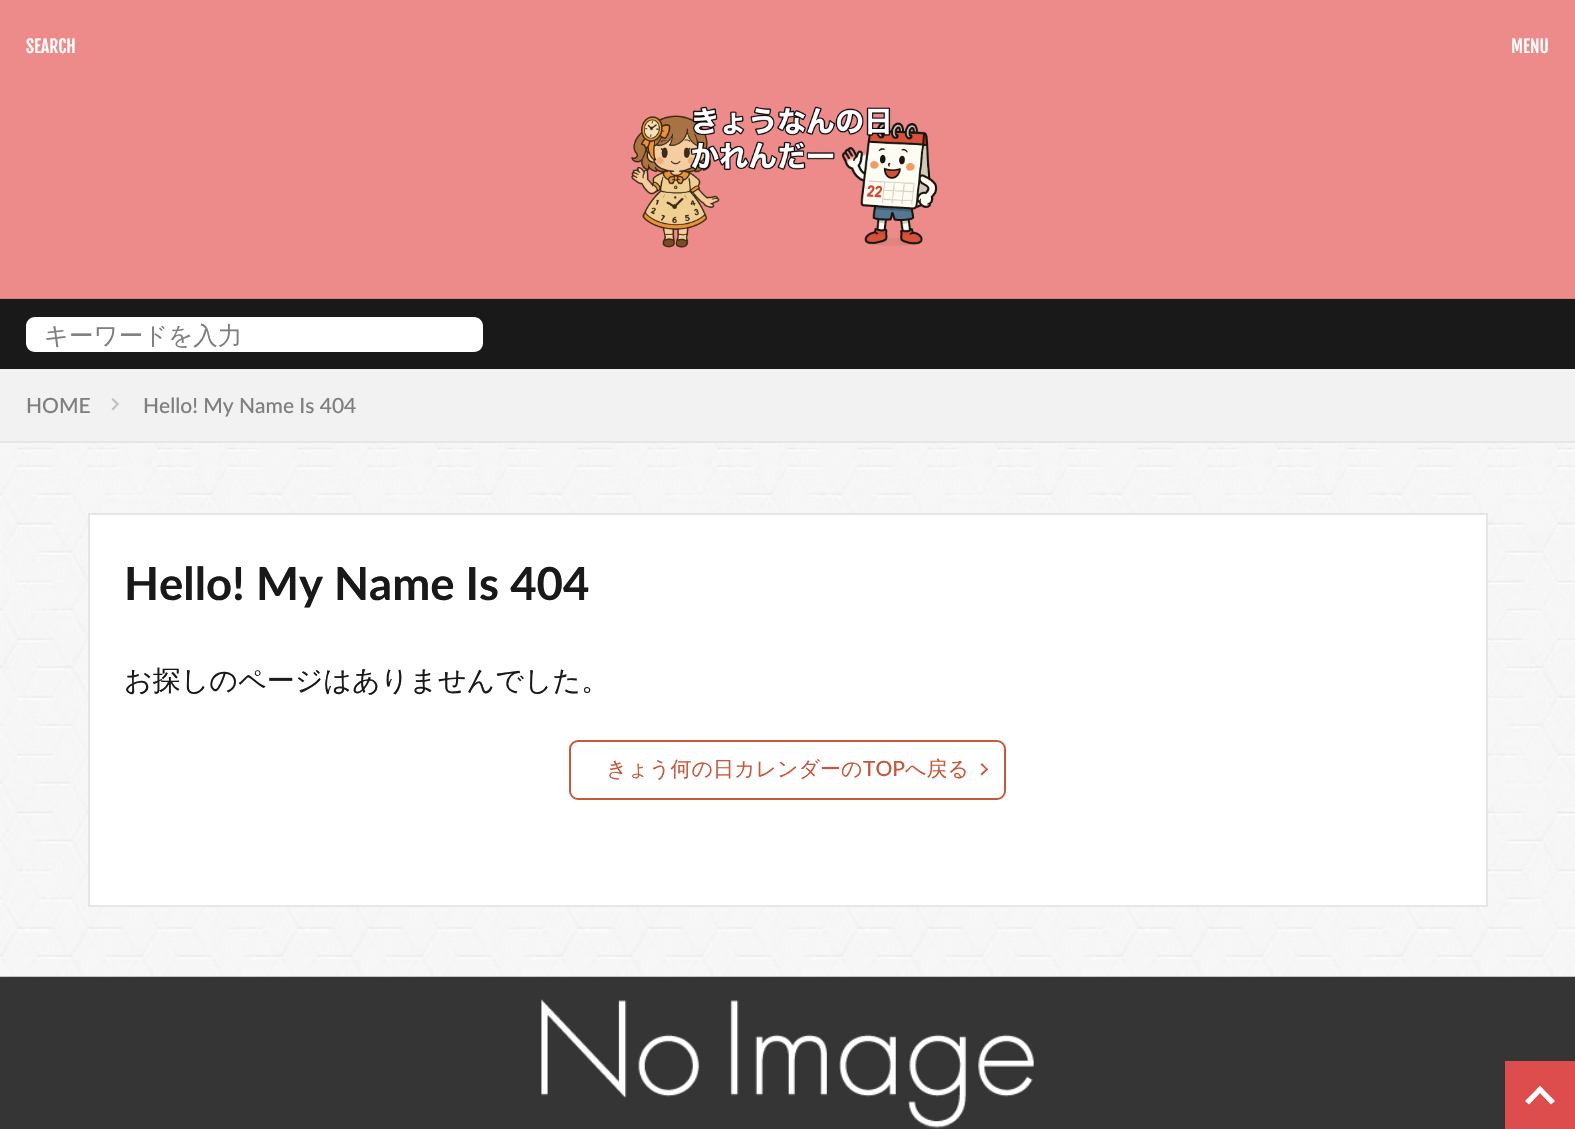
#include "include/core/SkBlurTypes.h"
#include "include/core/SkCanvas.h"
#include "include/core/SkData.h"
#include "include/core/SkFont.h"
#include "include/core/SkFontMgr.h"
#include "include/core/SkImage.h"
#include "include/core/SkMaskFilter.h"
#include "include/core/SkPaint.h"
#include "include/core/SkPathBuilder.h"
#include "include/core/SkTextBlob.h"
#include "include/effects/SkDashPathEffect.h"
#include "include/effects/SkGradientShader.h"
#include "include/utils/SkParsePath.h"

extern sk_sp<SkFontMgr> fontMgr;

static SkFont font(const char* family, int weight, float size, bool italic = false) {
    SkFontStyle style(weight, SkFontStyle::kNormal_Width,
        italic ? SkFontStyle::kItalic_Slant : SkFontStyle::kUpright_Slant);
    SkFont result(fontMgr->matchFamilyStyle(family, style), size);
    result.setSubpixel(true);
    return result;
}

static void drawLabel(SkCanvas* canvas, const char* s, float x, float y, const SkFont& font, SkColor color) {
    SkPaint ink(SkColor4f::FromColor(color));
    ink.setAntiAlias(true);
    canvas->drawString(s, x, y, font, ink);
}

static void fillRect(SkCanvas* canvas, float x, float y, float w, float h, SkColor color) {
    SkPaint ink(SkColor4f::FromColor(color));
    ink.setAntiAlias(true);
    canvas->drawRect(SkRect::MakeXYWH(x, y, w, h), ink);
}

static void drawPhoto(SkCanvas* canvas, const char* path, float x, float y, float w, float h) {
    auto image = SkImages::DeferredFromEncodedData(SkData::MakeFromFileName(path));
    canvas->drawImageRect(image, SkRect::MakeXYWH(x, y, w, h), SkSamplingOptions());
}

static SkPath parsePath(const char* data, bool evenOdd = false) {
    SkPath result = *SkParsePath::FromSVGString(data);
    if (evenOdd) result.setFillType(SkPathFillType::kEvenOdd);
    return result;
}

void draw(SkCanvas* canvas) {
    SkPaint paint;
    paint.setAntiAlias(true);
    canvas->clear(0xFFFFFFFF);
    drawPhoto(canvas, "assets/img1.png", 0, 443, 1575, 534);
    fillRect(canvas, 0, 0, 1575, 299, 0xFFED8B8B);
    fillRect(canvas, 0, 298, 1575, 1, 0x1A000000);
    SkFont font1 = font("Fjalla One", 400, 17.5f);
    drawLabel(canvas, "SEARCH", 26, 53, font1, 0xFFFFFFFF);
    drawLabel(canvas, "MENU", 1511, 53, font1, 0xFFFFFFFF);
    drawPhoto(canvas, "assets/img2.png", 631, 106, 307, 142);
    fillRect(canvas, 0, 299, 1575, 70, 0xFF191919);
    paint.setColor(0xFFFFFFFF);
    canvas->drawPath(parsePath("M35 317H413V352H35C30 352 26 348 26 343V326C26 321 30 317 35 317Z"), paint);
    SkFont font2 = font("WenQuanYi Zen Hei", 500, 24.5f);
    drawLabel(canvas, "キーワードを入力", 44, 344, font2, 0xFF7F7F7F);
    canvas->drawPath(parsePath("M413 317H474C479 317 483 321 483 326V343C483 348 479 352 474 352H413Z"), paint);
    fillRect(canvas, 0, 369, 1575, 72, 0xFFF2F2F2);
    fillRect(canvas, 0, 441, 1575, 2, 0xFFE6E6E6);
    SkFont font3 = font("Lato", 500, 21);
    drawLabel(canvas, "HOME", 26, 413, font3, 0xFF7F7F7F);
    paint.setColor(0xFFBFBFBF);
    canvas->drawPath(parsePath("M113 398L119 404L117.5 405.5L111.5 399.5Z"), paint);
    canvas->drawPath(parsePath("M117.5 403L119 404L113 410.5L111.5 409Z"), paint);
    drawLabel(canvas, "Hello! My Name Is 404", 143, 413, font3, 0xFF7F7F7F);
    paint.setColor(0xFFFFFFFF);
    canvas->drawRect(SkRect::MakeXYWH(89, 514, 1398, 392), paint);
    paint.setStroke(true);
    paint.setStrokeWidth(2);
    paint.setColor(0xFFE6E6E6);
    canvas->drawRect(SkRect::MakeXYWH(89, 514, 1398, 392), paint);
    SkFont font4 = font("Lato", 700, 45.5f);
    drawLabel(canvas, "Hello! My Name Is 404", 124, 600, font4, 0xFF191919);
    SkFont font5 = font("WenQuanYi Zen Hei", 500, 28);
    drawLabel(canvas, "お探しのページはありませんでした。", 124, 690, font5, 0xFF191919);
    paint.setColor(0xFFC5593E);
    canvas->drawRoundRect(SkRect::MakeXYWH(570, 741, 435, 58), 8, 8, paint);
    SkFont font6 = font("WenQuanYi Zen Hei", 500, 21);
    drawLabel(canvas, "きょう何の日カレンダーの", 606, 776, font6, 0xFFC5593E);
    drawLabel(canvas, "TOP", 863, 776, font3, 0xFFC5593E);
    drawLabel(canvas, "へ戻る", 905, 776, font6, 0xFFC5593E);
    paint.setStroke(false);
    canvas->drawPath(parsePath("M982 763L988 769.5L987 770.5L980.5 764.5Z"), paint);
    canvas->drawPath(parsePath("M987 768L988 769.5L982 775.5L980.5 774Z"), paint);
    drawPhoto(canvas, "assets/img3.png", 0, 976, 1575, 153);
    fillRect(canvas, 1505, 1061, 70, 68, 0xFFDD4D4D);
    paint.setColor(0xFFFFFFFF);
    canvas->drawPath(parsePath("M1525 1101L1540 1086L1543.5 1089.5L1529 1104.5Z"), paint);
    canvas->drawPath(parsePath("M1536.5 1089.5L1540 1086L1555 1101L1551 1104.5Z"), paint);
}
